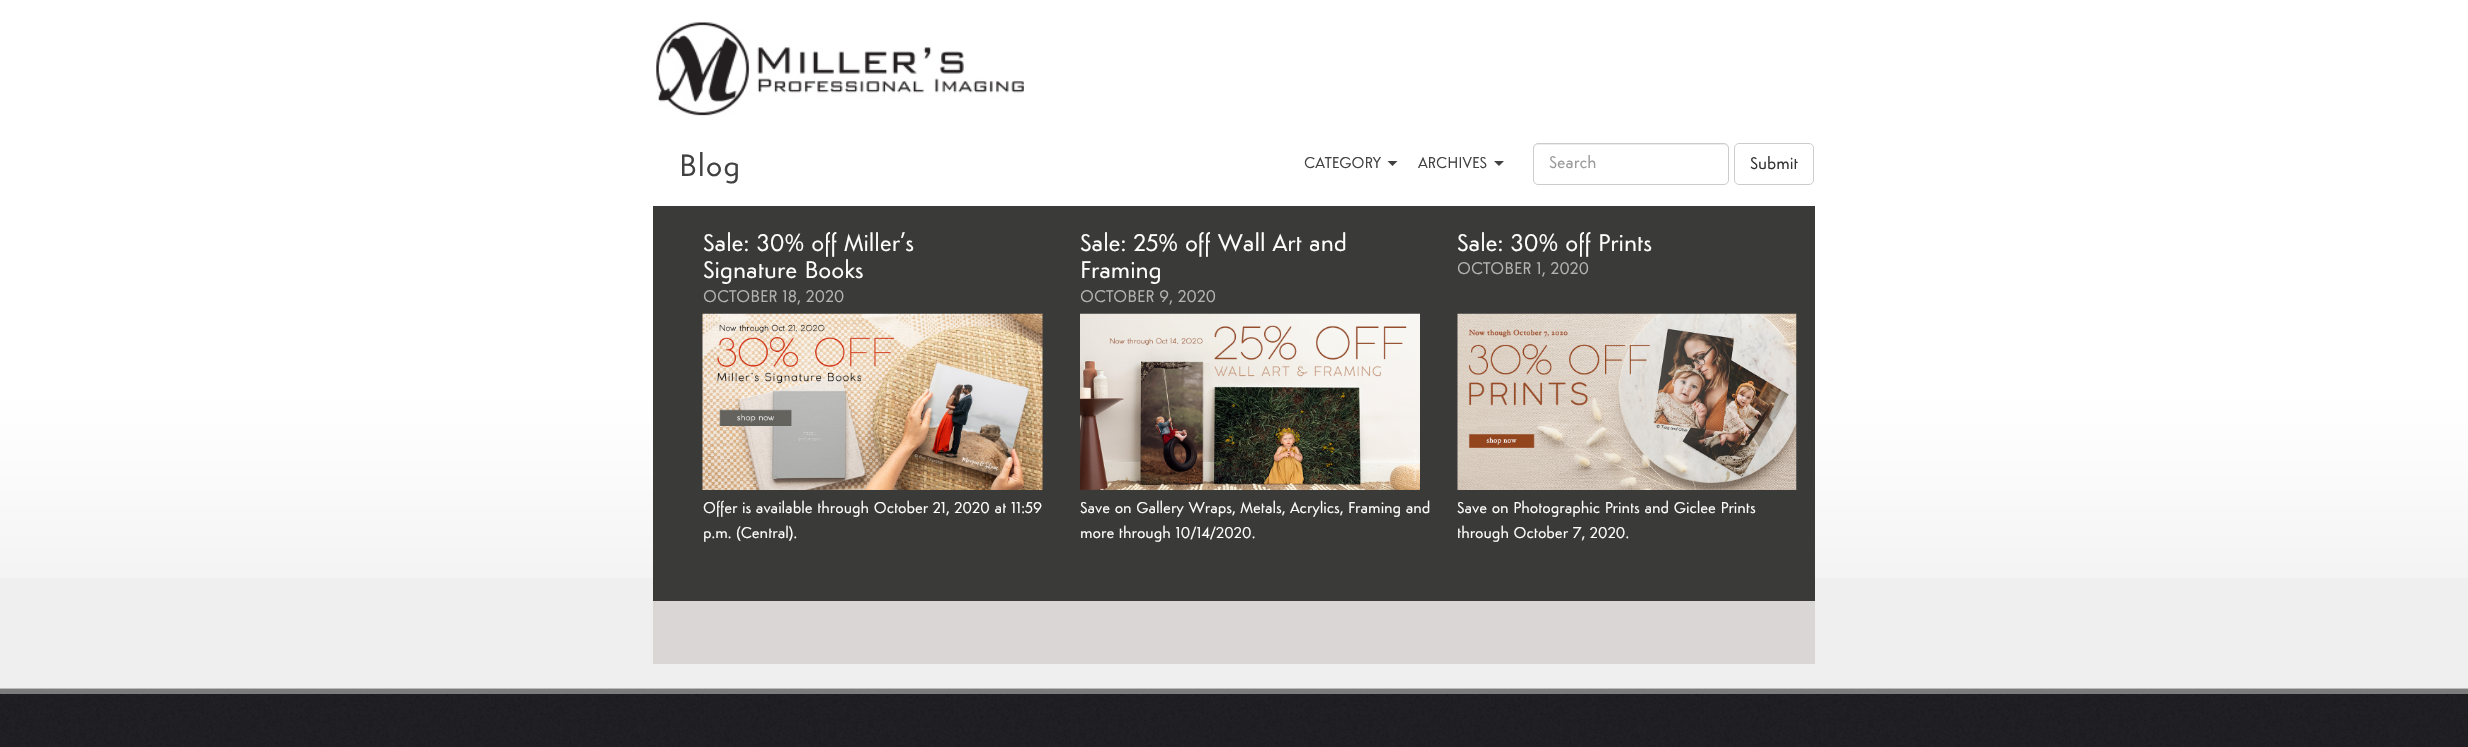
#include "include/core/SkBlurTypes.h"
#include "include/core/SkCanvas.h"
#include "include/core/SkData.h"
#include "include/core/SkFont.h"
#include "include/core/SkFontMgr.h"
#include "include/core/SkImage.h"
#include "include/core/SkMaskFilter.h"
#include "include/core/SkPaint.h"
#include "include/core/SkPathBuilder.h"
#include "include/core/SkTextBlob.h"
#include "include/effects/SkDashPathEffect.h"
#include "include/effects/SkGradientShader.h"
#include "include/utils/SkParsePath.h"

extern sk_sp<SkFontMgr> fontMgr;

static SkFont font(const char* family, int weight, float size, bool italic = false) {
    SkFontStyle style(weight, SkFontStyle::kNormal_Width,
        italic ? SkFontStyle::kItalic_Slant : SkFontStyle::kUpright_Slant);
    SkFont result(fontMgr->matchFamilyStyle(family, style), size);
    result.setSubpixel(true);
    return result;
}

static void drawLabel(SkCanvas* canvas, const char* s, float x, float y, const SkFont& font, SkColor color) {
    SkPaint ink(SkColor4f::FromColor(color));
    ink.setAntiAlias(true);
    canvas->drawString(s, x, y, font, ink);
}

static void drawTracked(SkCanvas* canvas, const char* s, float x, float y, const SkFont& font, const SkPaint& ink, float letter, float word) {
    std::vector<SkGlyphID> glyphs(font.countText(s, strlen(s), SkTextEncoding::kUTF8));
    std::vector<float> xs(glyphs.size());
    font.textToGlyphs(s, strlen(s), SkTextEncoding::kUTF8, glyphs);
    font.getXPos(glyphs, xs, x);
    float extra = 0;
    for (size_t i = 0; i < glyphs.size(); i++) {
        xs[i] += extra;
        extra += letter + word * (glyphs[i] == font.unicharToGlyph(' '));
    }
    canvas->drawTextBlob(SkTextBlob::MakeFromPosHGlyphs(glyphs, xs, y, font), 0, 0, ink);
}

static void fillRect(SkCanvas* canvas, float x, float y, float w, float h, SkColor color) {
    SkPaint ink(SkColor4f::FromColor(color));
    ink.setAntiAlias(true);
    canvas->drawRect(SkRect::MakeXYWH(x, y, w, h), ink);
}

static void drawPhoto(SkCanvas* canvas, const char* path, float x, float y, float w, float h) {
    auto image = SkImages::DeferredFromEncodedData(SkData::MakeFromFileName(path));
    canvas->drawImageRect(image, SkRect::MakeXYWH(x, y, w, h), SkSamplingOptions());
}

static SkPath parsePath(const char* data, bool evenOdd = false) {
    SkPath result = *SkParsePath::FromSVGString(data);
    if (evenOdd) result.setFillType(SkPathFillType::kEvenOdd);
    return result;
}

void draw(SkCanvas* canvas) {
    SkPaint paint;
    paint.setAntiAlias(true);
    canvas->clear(0xFFEFEFEF);
    drawPhoto(canvas, "assets/img1.png", 0, 0, 2468, 578);
    drawPhoto(canvas, "assets/img2.png", 656, 22, 368, 94);
    SkFont font1 = font("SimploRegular", 400, 32);
    paint.setColor(0xFF414141);
    drawTracked(canvas, "Blog", 679, 176, font1, paint, 1, 0);
    SkFont font2 = font("SimploRegular", 400, 16.25f);
    drawLabel(canvas, "CATEGORY", 1304, 168, font2, 0xFF414141);
    canvas->drawPath(parsePath("M1387.5 161H1397.5L1392.5 166Z"), paint);
    drawLabel(canvas, "ARCHIVES", 1418, 168, font2, 0xFF414141);
    canvas->drawPath(parsePath("M1494 161H1504L1499 166Z"), paint);
    paint.setColor(0xFFECECEC);
    canvas->drawPath(parsePath("M1538 145H1724C1726 145 1728 147 1728 149V148C1728 146 1726 144 1724 144H1538C1536 144 1534 146 1534 148V149C1534 147 1535 145 1538 145Z"), paint);
    paint.setStroke(true);
    paint.setStrokeWidth(1);
    paint.setColor(0xFFCCCCCC);
    canvas->drawRoundRect(SkRect::MakeXYWH(1533.5f, 143.5f, 195, 41), 4.5f, 4.5f, paint);
    SkFont font3 = font("SimploRegular", 400, 17.5f);
    drawLabel(canvas, "Search", 1549, 168, font3, 0xFF999999);
    canvas->drawRoundRect(SkRect::MakeXYWH(1734.5f, 143.5f, 79, 41), 4.5f, 4.5f, paint);
    drawLabel(canvas, "Submit", 1750, 169, font3, 0xFF333333);
    fillRect(canvas, 653, 206, 1162, 395, 0xFF3A3A39);
    SkFont font4 = font("SimploRegular", 400, 25);
    drawLabel(canvas, "Sale: 30% off Miller’s", 703, 251, font4, 0xFFFFFFFF);
    drawLabel(canvas, "Signature Books", 703, 278, font4, 0xFFFFFFFF);
    drawLabel(canvas, "OCTOBER 18, 2020", 703, 302, font3, 0xFFB3B3B3);
    drawPhoto(canvas, "assets/img3.png", 702, 313, 341, 177);
    drawLabel(canvas, "Offer is available through October 21, 2020 at 11:59", 703, 513, font2, 0xFFFFFFFF);
    drawLabel(canvas, "p.m. (Central).", 703, 538, font2, 0xFFFFFFFF);
    drawLabel(canvas, "Sale: 25% off Wall Art and", 1080, 251, font4, 0xFFFFFFFF);
    drawLabel(canvas, "Framing", 1080, 278, font4, 0xFFFFFFFF);
    drawLabel(canvas, "OCTOBER 9, 2020", 1080, 302, font3, 0xFFB3B3B3);
    drawPhoto(canvas, "assets/img4.png", 1080, 313, 340, 177);
    drawLabel(canvas, "Save on Gallery Wraps, Metals, Acrylics, Framing and", 1080, 513, font2, 0xFFFFFFFF);
    drawLabel(canvas, "more through 10/14/2020.", 1080, 538, font2, 0xFFFFFFFF);
    drawLabel(canvas, "Sale: 30% off Prints", 1457, 251, font4, 0xFFFFFFFF);
    drawLabel(canvas, "OCTOBER 1, 2020", 1457, 274, font3, 0xFFB3B3B3);
    drawPhoto(canvas, "assets/img5.png", 1457, 313, 340, 177);
    drawLabel(canvas, "Save on Photographic Prints and Giclee Prints", 1457, 513, font2, 0xFFFFFFFF);
    drawLabel(canvas, "through October 7, 2020.", 1457, 538, font2, 0xFFFFFFFF);
    fillRect(canvas, 653, 601, 1162, 63, 0xFFDAD6D5);
    drawPhoto(canvas, "assets/img6.png", 0, 688, 2468, 59);
    fillRect(canvas, 0, 689, 2468, 5, 0xFF7C7C7C);
}
